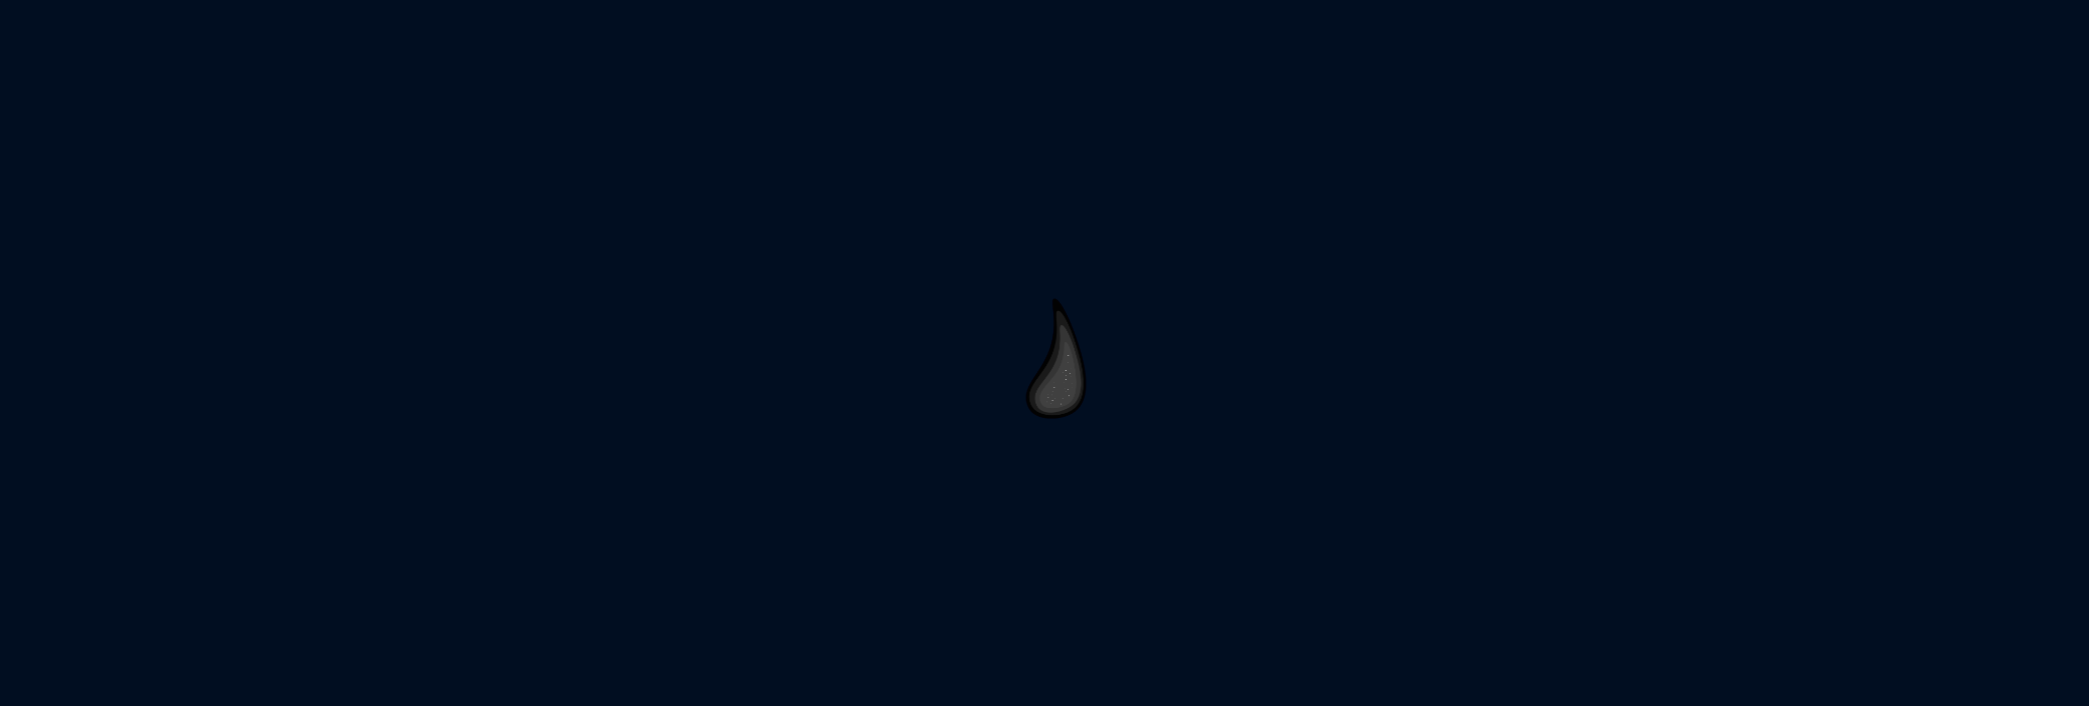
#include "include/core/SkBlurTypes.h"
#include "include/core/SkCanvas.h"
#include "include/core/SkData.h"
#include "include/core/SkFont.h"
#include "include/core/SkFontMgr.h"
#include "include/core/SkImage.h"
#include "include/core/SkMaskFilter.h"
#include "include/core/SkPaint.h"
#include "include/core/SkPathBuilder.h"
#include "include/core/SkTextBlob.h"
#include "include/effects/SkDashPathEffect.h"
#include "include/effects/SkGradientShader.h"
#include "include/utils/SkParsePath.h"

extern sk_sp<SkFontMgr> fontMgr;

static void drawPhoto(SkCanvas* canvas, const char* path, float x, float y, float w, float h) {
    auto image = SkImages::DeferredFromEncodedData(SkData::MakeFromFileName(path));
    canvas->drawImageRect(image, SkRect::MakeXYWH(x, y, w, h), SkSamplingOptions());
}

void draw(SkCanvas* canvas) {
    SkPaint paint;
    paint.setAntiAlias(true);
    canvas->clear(0xFF010E21);
    drawPhoto(canvas, "assets/img2.png", 1026, 298, 60, 121);
    drawPhoto(canvas, "assets/img1.png", 1025, 298, 62, 121);
}
